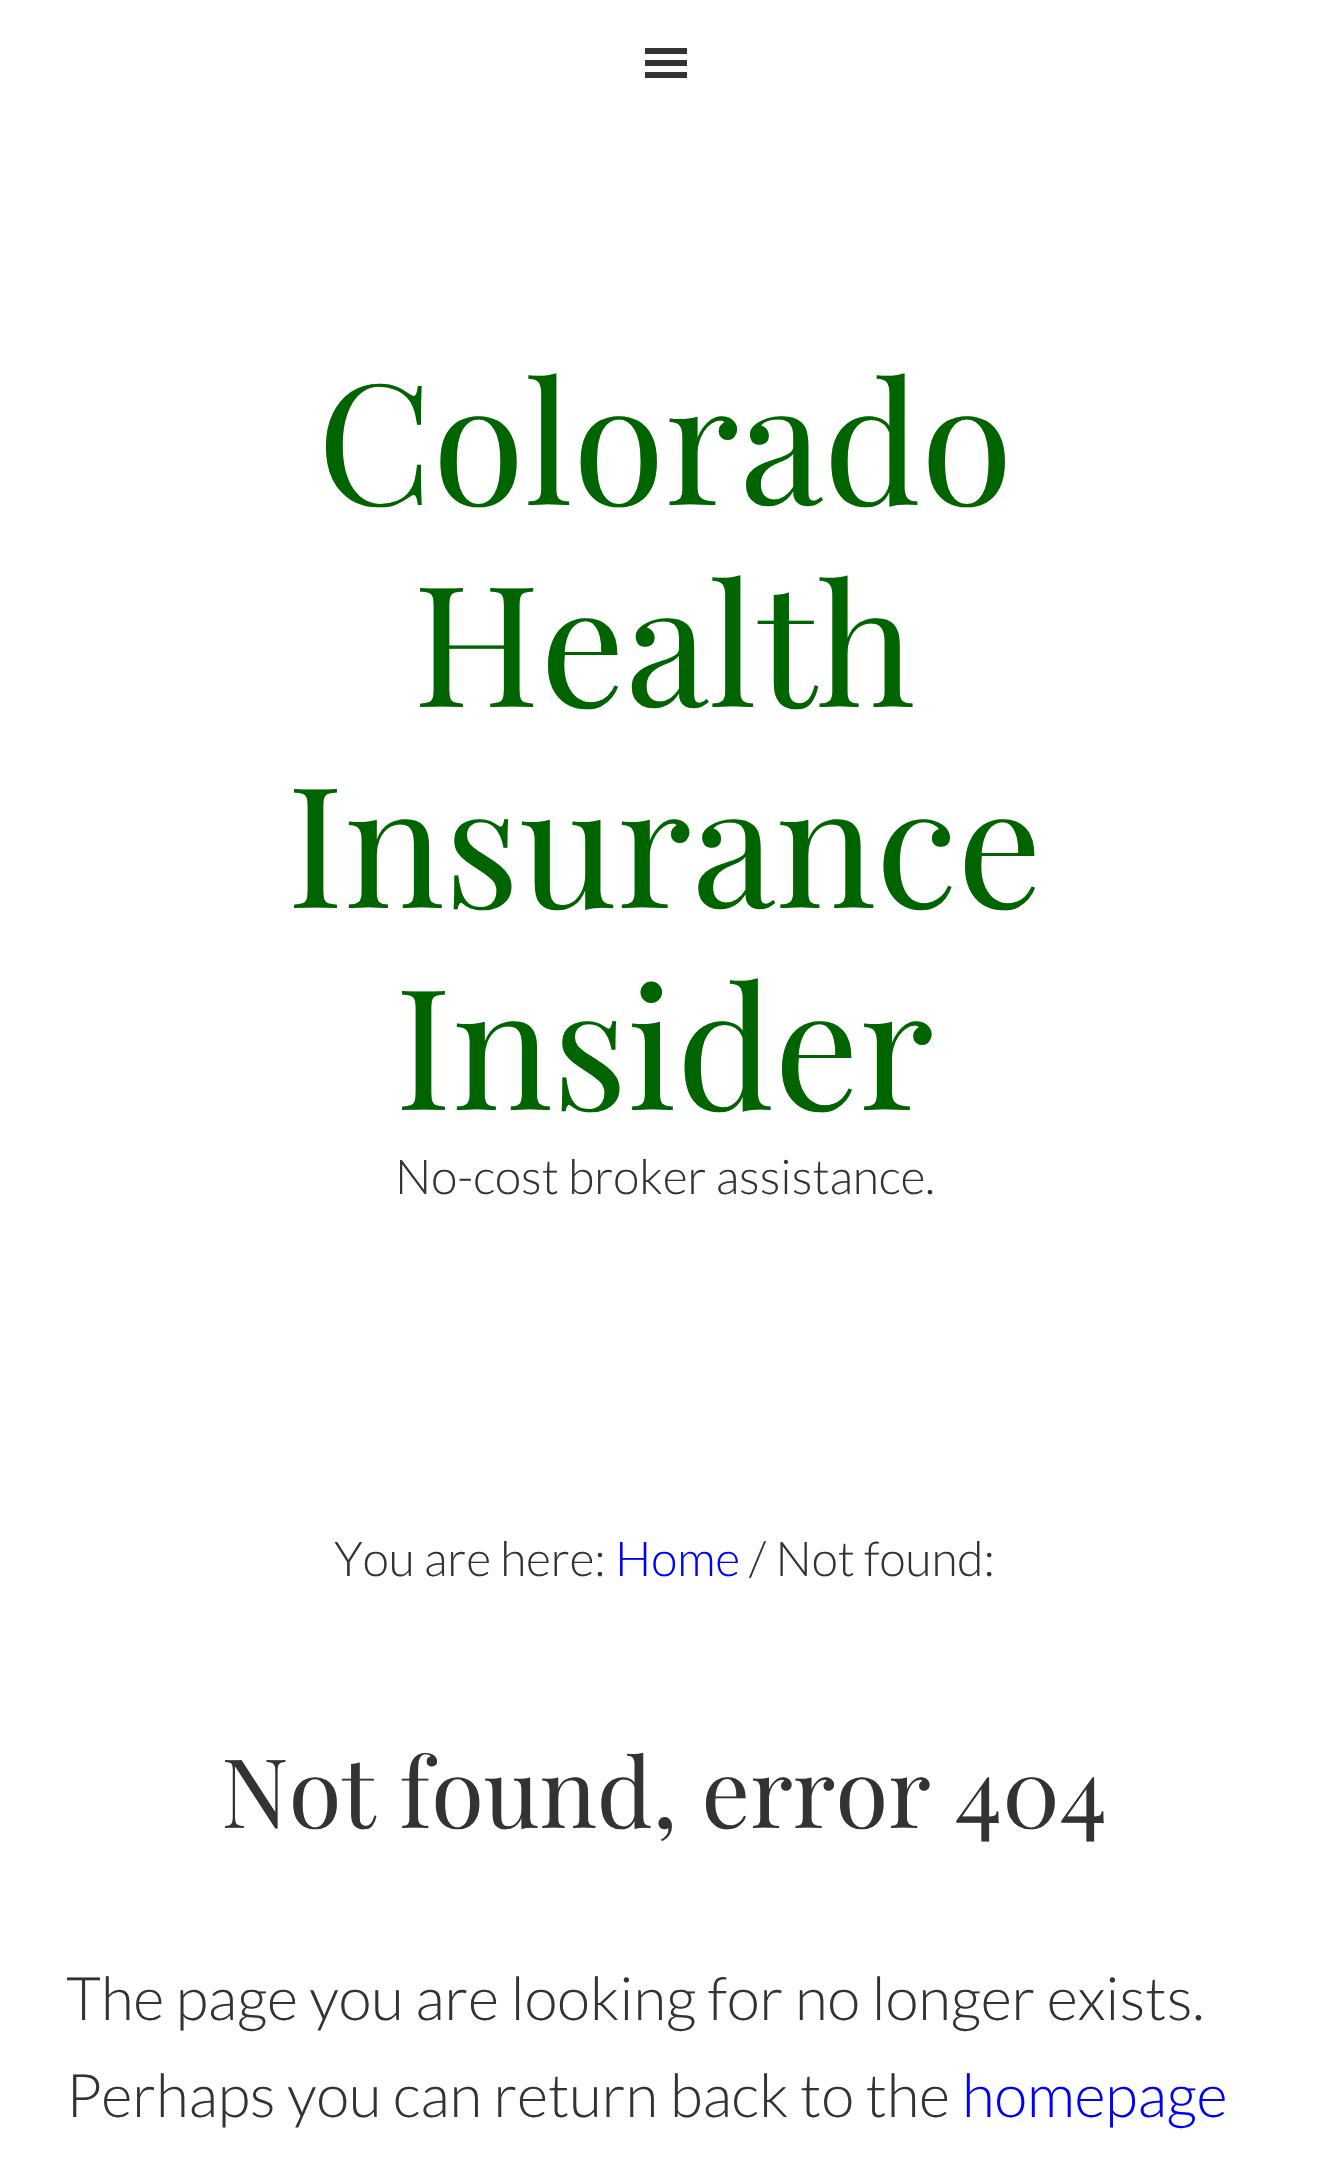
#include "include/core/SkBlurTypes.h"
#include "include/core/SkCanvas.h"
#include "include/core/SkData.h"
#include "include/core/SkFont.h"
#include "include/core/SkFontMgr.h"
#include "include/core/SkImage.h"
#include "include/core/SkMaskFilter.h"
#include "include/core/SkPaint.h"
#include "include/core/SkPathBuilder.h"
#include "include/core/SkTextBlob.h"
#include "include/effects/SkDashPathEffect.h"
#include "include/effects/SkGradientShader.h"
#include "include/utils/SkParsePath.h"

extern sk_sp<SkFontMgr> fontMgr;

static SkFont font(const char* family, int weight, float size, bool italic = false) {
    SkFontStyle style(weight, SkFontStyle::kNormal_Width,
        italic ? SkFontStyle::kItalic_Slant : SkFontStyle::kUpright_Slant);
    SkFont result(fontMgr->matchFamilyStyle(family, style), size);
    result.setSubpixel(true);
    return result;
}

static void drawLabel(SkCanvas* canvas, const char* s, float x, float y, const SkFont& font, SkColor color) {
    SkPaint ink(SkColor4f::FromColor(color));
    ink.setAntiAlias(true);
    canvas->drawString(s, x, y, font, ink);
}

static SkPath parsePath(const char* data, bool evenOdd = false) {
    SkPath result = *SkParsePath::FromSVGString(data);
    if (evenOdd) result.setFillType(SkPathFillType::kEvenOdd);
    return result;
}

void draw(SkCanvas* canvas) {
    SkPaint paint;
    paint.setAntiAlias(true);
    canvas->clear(0xFFFFFFFF);
    paint.setColor(0xFF333333);
    canvas->drawPath(parsePath("M645 78H687V72H645ZM645 48V54H687V48ZM645 66H687V60H645Z"), paint);
    SkFont font1 = font("Playfair Display", 400, 168);
    drawLabel(canvas, "Colorado", 317, 505, font1, 0xFF006400);
    drawLabel(canvas, "Health", 413, 707, font1, 0xFF006400);
    drawLabel(canvas, "Insurance", 287, 908, font1, 0xFF006400);
    drawLabel(canvas, "Insider", 395, 1110, font1, 0xFF006400);
    SkFont font2 = font("Lato", 300, 48);
    drawLabel(canvas, "No-cost broker assistance.", 395, 1194, font2, 0xFF333333);
    drawLabel(canvas, "You are here:", 334, 1576, font2, 0xFF333333);
    drawLabel(canvas, "Home", 615, 1576, font2, 0xFF0000FF);
    drawLabel(canvas, "/ Not found:", 749, 1576, font2, 0xFF333333);
    SkFont font3 = font("Playfair Display", 400, 96);
    drawLabel(canvas, "Not found, error 404", 221, 1828, font3, 0xFF333333);
    SkFont font4 = font("Lato", 300, 60);
    drawLabel(canvas, "The page you are looking for no longer exists.", 66, 2020, font4, 0xFF333333);
    drawLabel(canvas, "Perhaps you can return back to the", 66, 2117, font4, 0xFF333333);
    drawLabel(canvas, "homepage", 962, 2117, font4, 0xFF0000FF);
}
